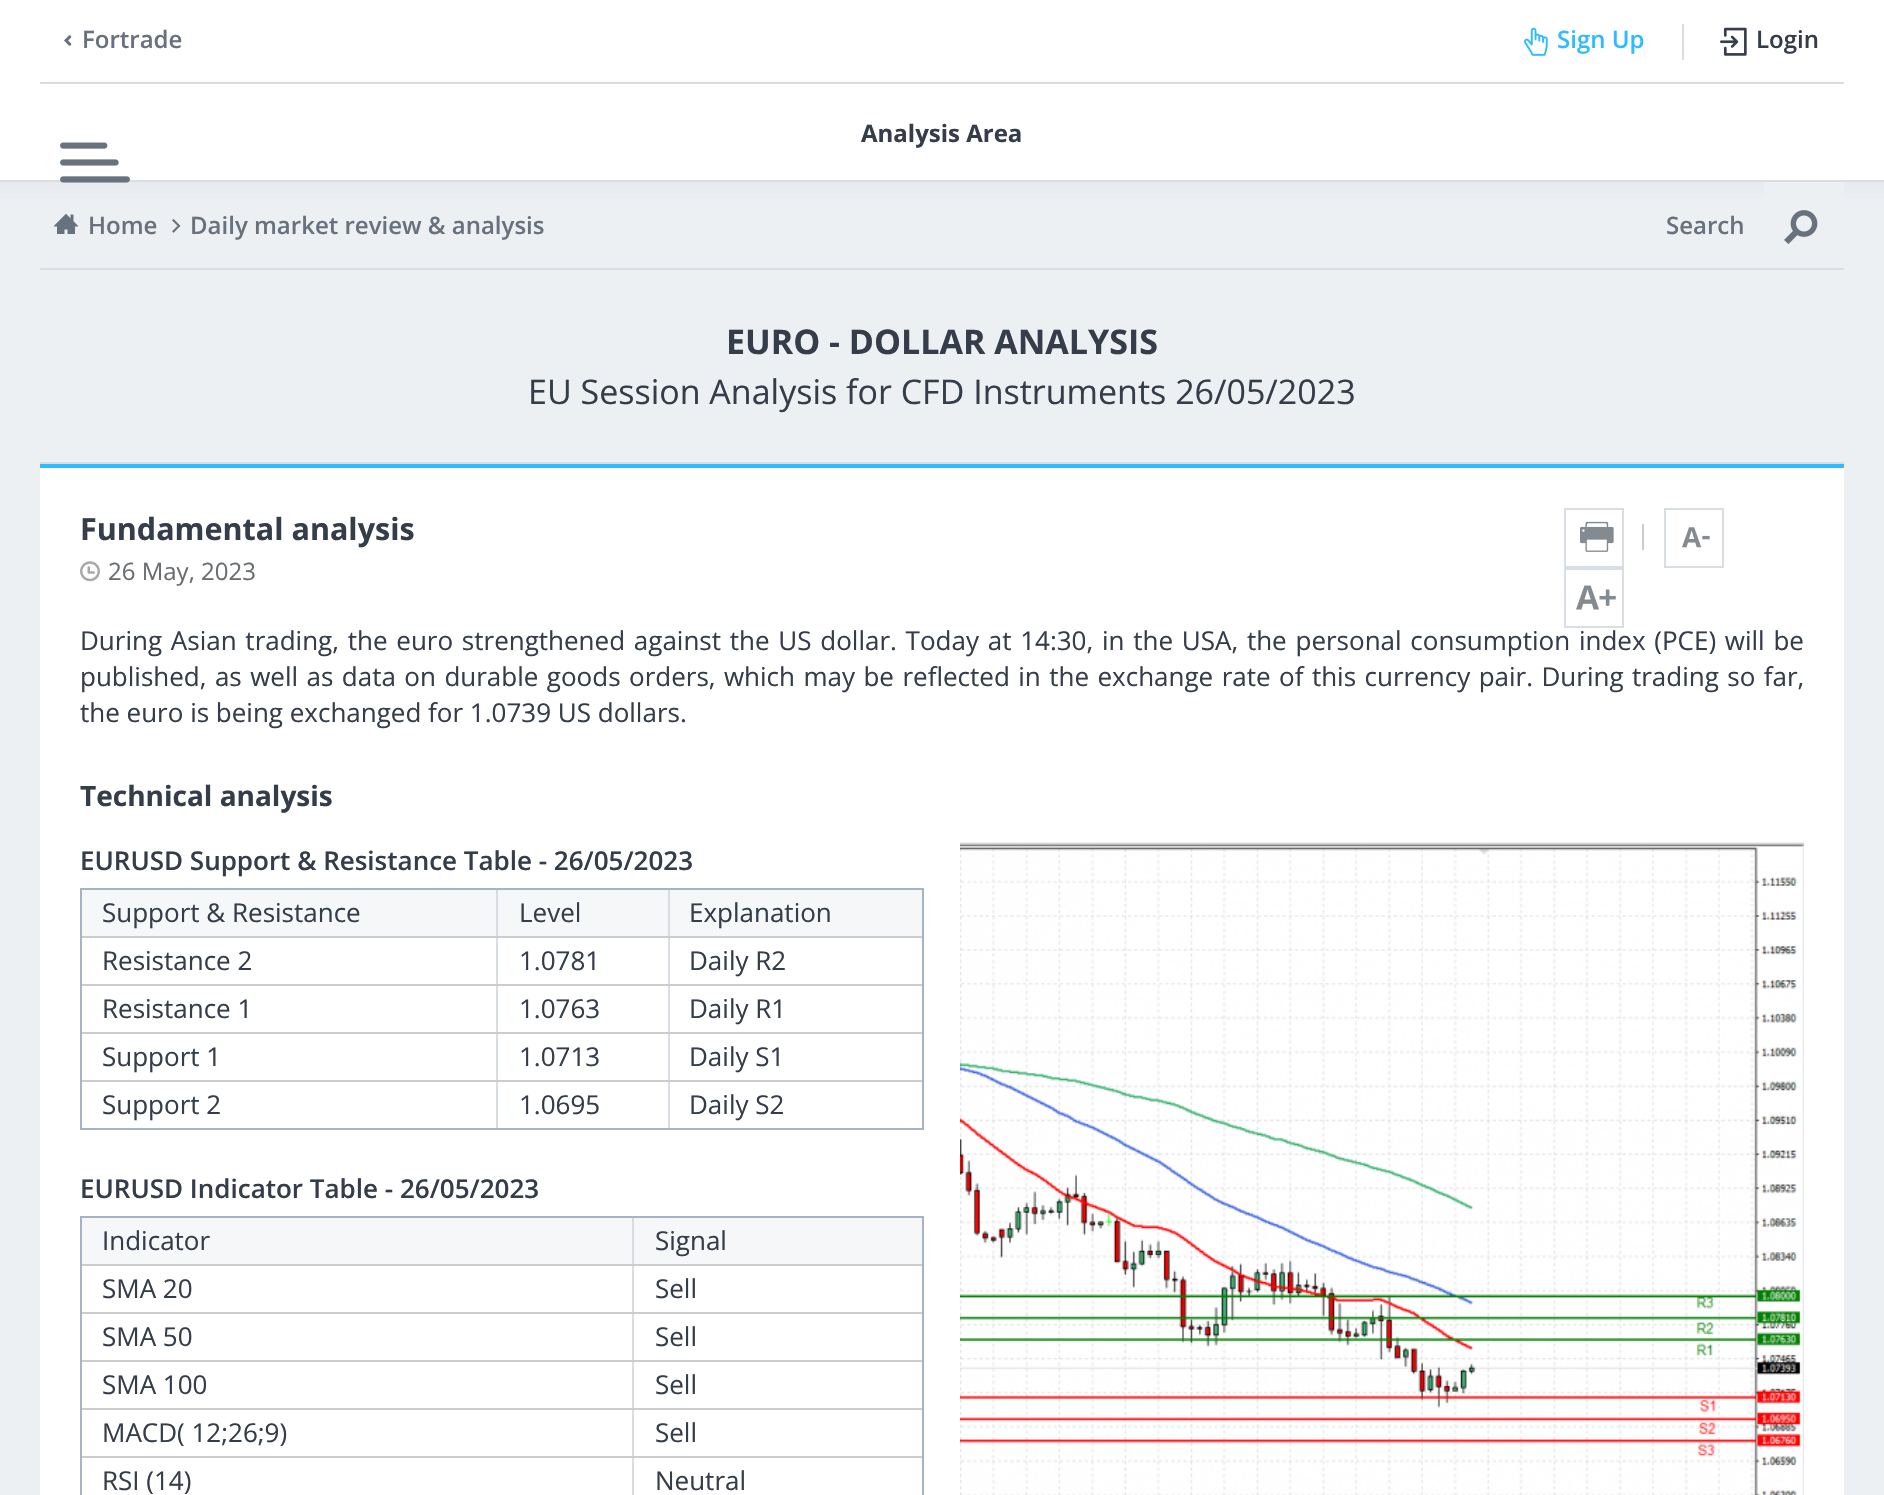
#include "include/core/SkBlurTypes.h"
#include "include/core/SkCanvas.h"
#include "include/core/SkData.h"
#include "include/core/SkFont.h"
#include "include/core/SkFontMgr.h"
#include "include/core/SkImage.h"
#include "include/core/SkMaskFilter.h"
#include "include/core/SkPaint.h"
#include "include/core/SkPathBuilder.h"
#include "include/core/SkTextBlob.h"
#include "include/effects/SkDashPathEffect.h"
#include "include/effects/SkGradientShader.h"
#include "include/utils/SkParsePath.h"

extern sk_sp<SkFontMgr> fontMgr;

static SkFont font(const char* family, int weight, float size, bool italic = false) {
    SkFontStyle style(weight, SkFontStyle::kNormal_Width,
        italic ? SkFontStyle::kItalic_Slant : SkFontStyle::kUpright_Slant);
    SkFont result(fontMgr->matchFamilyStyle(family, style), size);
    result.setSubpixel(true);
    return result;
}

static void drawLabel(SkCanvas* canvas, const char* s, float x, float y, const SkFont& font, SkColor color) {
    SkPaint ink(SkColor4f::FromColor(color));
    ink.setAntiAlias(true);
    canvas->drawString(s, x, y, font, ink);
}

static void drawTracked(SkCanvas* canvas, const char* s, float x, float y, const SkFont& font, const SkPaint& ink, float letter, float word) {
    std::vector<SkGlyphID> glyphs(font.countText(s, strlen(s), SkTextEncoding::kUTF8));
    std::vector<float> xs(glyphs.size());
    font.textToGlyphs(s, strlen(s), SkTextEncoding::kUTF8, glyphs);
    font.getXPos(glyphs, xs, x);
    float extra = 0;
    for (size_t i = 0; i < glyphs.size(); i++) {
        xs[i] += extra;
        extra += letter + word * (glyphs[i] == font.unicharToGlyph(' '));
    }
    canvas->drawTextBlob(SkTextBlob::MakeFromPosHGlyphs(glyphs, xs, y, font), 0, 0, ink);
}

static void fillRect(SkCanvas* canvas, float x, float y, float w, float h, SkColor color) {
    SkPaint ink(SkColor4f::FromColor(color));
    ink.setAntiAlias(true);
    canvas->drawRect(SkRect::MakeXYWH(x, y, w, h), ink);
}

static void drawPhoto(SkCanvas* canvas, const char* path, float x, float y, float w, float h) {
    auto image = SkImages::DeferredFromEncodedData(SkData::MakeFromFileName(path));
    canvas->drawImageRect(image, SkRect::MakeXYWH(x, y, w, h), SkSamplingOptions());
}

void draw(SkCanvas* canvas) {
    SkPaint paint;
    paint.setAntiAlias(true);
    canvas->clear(0xFFEDF0F3);
    fillRect(canvas, 0, 0, 1884, 180, 0xFFFFFFFF);
    fillRect(canvas, 0, 180, 1884, 2, 0xFFD9DEE4);
    fillRect(canvas, 40, 82, 1804, 2, 0xFFD8DDE4);
    drawPhoto(canvas, "assets/img1.png", 64, 35, 8, 11);
    SkFont font1 = font("Open Sans", 600, 24);
    drawLabel(canvas, "Fortrade", 82, 48, font1, 0xFF68717E);
    drawPhoto(canvas, "assets/img2.png", 1524, 27, 24, 29);
    drawLabel(canvas, "Sign Up", 1557, 48, font1, 0xFF2FBBFF);
    fillRect(canvas, 1682, 24, 2, 36, 0xFFD8DDE4);
    drawPhoto(canvas, "assets/img3.png", 1720, 27, 27, 29);
    drawLabel(canvas, "Login", 1756, 48, font1, 0xFF343D49);
    SkFont font2 = font("Open Sans", 700, 24);
    drawLabel(canvas, "Analysis Area", 861, 142, font2, 0xFF343D49);
    {
        const SkColor colors[] = {0xFFE7EBEF, 0xFFEDF0F3};
        const float stops[] = {0, 1};
        const SkPoint ends[] = {{942, 182}, {942, 212}};
        paint.setShader(SkGradientShader::MakeLinear(ends, colors, stops, 2, SkTileMode::kClamp));
        paint.setAlpha(255);
    }
    canvas->drawRect(SkRect::MakeXYWH(0, 182, 1884, 17), paint);
    drawPhoto(canvas, "assets/img4.png", 60, 142, 70, 41);
    drawPhoto(canvas, "assets/img5.png", 54, 213, 24, 21);
    drawLabel(canvas, "Home", 88, 234, font1, 0xFF68717E);
    drawPhoto(canvas, "assets/img6.png", 172, 219, 9, 14);
    drawLabel(canvas, "Daily market review & analysis", 190, 234, font1, 0xFF68717E);
    drawLabel(canvas, "Search", 1666, 234, font1, 0xFF68717E);
    fillRect(canvas, 1764, 182, 80, 17, 0xFFEDF0F3);
    drawPhoto(canvas, "assets/img7.png", 1784, 210, 34, 34);
    fillRect(canvas, 40, 268, 1804, 2, 0xFFD9DEE4);
    fillRect(canvas, 40, 462, 1804, 2, 0xFFD9DEE4);
    SkFont font3 = font("Open Sans", 700, 34);
    drawLabel(canvas, "EURO - DOLLAR ANALYSIS", 726, 354, font3, 0xFF343D49);
    SkFont font4 = font("Open Sans", 400, 34);
    drawLabel(canvas, "EU Session Analysis for CFD Instruments 26/05/2023", 528, 404, font4, 0xFF343D49);
    fillRect(canvas, 40, 468, 1804, 1027, 0xFFFFFFFF);
    fillRect(canvas, 40, 464, 1804, 4, 0xFF2FBBFF);
    SkFont font5 = font("Open Sans", 700, 30.5f);
    drawLabel(canvas, "Fundamental analysis", 80, 540, font5, 0xFF343D49);
    drawPhoto(canvas, "assets/img8.png", 80, 561, 20, 21);
    SkFont font6 = font("Open Sans", 400, 24);
    drawLabel(canvas, "26 May, 2023", 108, 580, font6, 0xFF696D70);
    paint.setStroke(true);
    paint.setStrokeWidth(2);
    paint.setShader(nullptr);
    paint.setColor(0xFFD9DEE4);
    canvas->drawRect(SkRect::MakeXYWH(1565, 509, 58, 58), paint);
    drawPhoto(canvas, "assets/img9.png", 1580, 521, 34, 31);
    fillRect(canvas, 1642, 524, 2, 26, 0xFFCCCCCC);
    canvas->drawRect(SkRect::MakeXYWH(1665, 509, 58, 58), paint);
    drawPhoto(canvas, "assets/img10.png", 1682, 527, 28, 21);
    canvas->drawRect(SkRect::MakeXYWH(1565, 569, 58, 58), paint);
    drawPhoto(canvas, "assets/img11.png", 1576, 585, 40, 25);
    SkFont font7 = font("Open Sans", 400, 26);
    paint.setStroke(false);
    paint.setColor(0xFF343D49);
    drawTracked(canvas, "During Asian trading, the euro strengthened against the US dollar. Today at 14:30, in the USA, the personal consumption index (PCE) will be", 80, 650, font7, paint, 0, 2);
    drawTracked(canvas, "published, as well as data on durable goods orders, which may be reflected in the exchange rate of this currency pair. During trading so far,", 80, 686, font7, paint, 0, 1.7f);
    drawLabel(canvas, "the euro is being exchanged for 1.0739 US dollars.", 80, 722, font7, 0xFF343D49);
    SkFont font8 = font("Open Sans", 700, 28);
    drawLabel(canvas, "Technical analysis", 80, 806, font8, 0xFF343D49);
    SkFont font9 = font("Open Sans", 600, 26);
    drawLabel(canvas, "EURUSD Support & Resistance Table - 26/05/2023", 80, 870, font9, 0xFF343D49);
    paint.setStroke(true);
    paint.setColor(0xFFA5B3C5);
    canvas->drawRect(SkRect::MakeXYWH(81, 889, 842, 240), paint);
    fillRect(canvas, 82, 890, 840, 46, 0xFFF6F7F9);
    fillRect(canvas, 496, 890, 2, 238, 0xFFD8DDE4);
    fillRect(canvas, 82, 936, 416, 2, 0xFFCCCCCC);
    drawLabel(canvas, "Support & Resistance", 102, 922, font7, 0xFF343D49);
    fillRect(canvas, 668, 890, 2, 238, 0xFFD8DDE4);
    fillRect(canvas, 498, 936, 424, 2, 0xFFCCCCCC);
    drawLabel(canvas, "Level", 519, 922, font7, 0xFF343D49);
    drawLabel(canvas, "Explanation", 689, 922, font7, 0xFF343D49);
    fillRect(canvas, 82, 984, 840, 2, 0xFFCCCCCC);
    drawLabel(canvas, "Resistance 2", 102, 970, font7, 0xFF343D49);
    drawLabel(canvas, "1.0781", 519, 970, font7, 0xFF343D49);
    drawLabel(canvas, "Daily R2", 689, 970, font7, 0xFF343D49);
    fillRect(canvas, 82, 1032, 840, 2, 0xFFCCCCCC);
    drawLabel(canvas, "Resistance 1", 102, 1018, font7, 0xFF343D49);
    drawLabel(canvas, "1.0763", 519, 1018, font7, 0xFF343D49);
    drawLabel(canvas, "Daily R1", 689, 1018, font7, 0xFF343D49);
    fillRect(canvas, 82, 1080, 840, 2, 0xFFCCCCCC);
    drawLabel(canvas, "Support 1", 102, 1066, font7, 0xFF343D49);
    drawLabel(canvas, "1.0713", 519, 1066, font7, 0xFF343D49);
    drawLabel(canvas, "Daily S1", 689, 1066, font7, 0xFF343D49);
    drawLabel(canvas, "Support 2", 102, 1114, font7, 0xFF343D49);
    drawLabel(canvas, "1.0695", 519, 1114, font7, 0xFF343D49);
    drawLabel(canvas, "Daily S2", 689, 1114, font7, 0xFF343D49);
    drawLabel(canvas, "EURUSD Indicator Table - 26/05/2023", 80, 1198, font9, 0xFF343D49);
    canvas->drawRect(SkRect::MakeXYWH(81, 1217, 842, 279), paint);
    fillRect(canvas, 82, 1218, 840, 46, 0xFFF6F7F9);
    fillRect(canvas, 632, 1218, 2, 277, 0xFFD8DDE4);
    fillRect(canvas, 82, 1264, 840, 2, 0xFFCCCCCC);
    drawLabel(canvas, "Indicator", 102, 1250, font7, 0xFF343D49);
    drawLabel(canvas, "Signal", 655, 1250, font7, 0xFF343D49);
    fillRect(canvas, 82, 1312, 840, 2, 0xFFCCCCCC);
    drawLabel(canvas, "SMA 20", 102, 1298, font7, 0xFF343D49);
    drawLabel(canvas, "Sell", 655, 1298, font7, 0xFF343D49);
    fillRect(canvas, 82, 1360, 840, 2, 0xFFCCCCCC);
    drawLabel(canvas, "SMA 50", 102, 1346, font7, 0xFF343D49);
    drawLabel(canvas, "Sell", 655, 1346, font7, 0xFF343D49);
    fillRect(canvas, 82, 1408, 840, 2, 0xFFCCCCCC);
    drawLabel(canvas, "SMA 100", 102, 1394, font7, 0xFF343D49);
    drawLabel(canvas, "Sell", 655, 1394, font7, 0xFF343D49);
    fillRect(canvas, 82, 1456, 840, 2, 0xFFCCCCCC);
    drawLabel(canvas, "MACD( 12;26;9)", 102, 1442, font7, 0xFF343D49);
    drawLabel(canvas, "Sell", 655, 1442, font7, 0xFF343D49);
    drawLabel(canvas, "RSI (14)", 102, 1490, font7, 0xFF343D49);
    drawLabel(canvas, "Neutral", 655, 1490, font7, 0xFF343D49);
    drawPhoto(canvas, "assets/img12.png", 960, 842, 844, 653);
}
